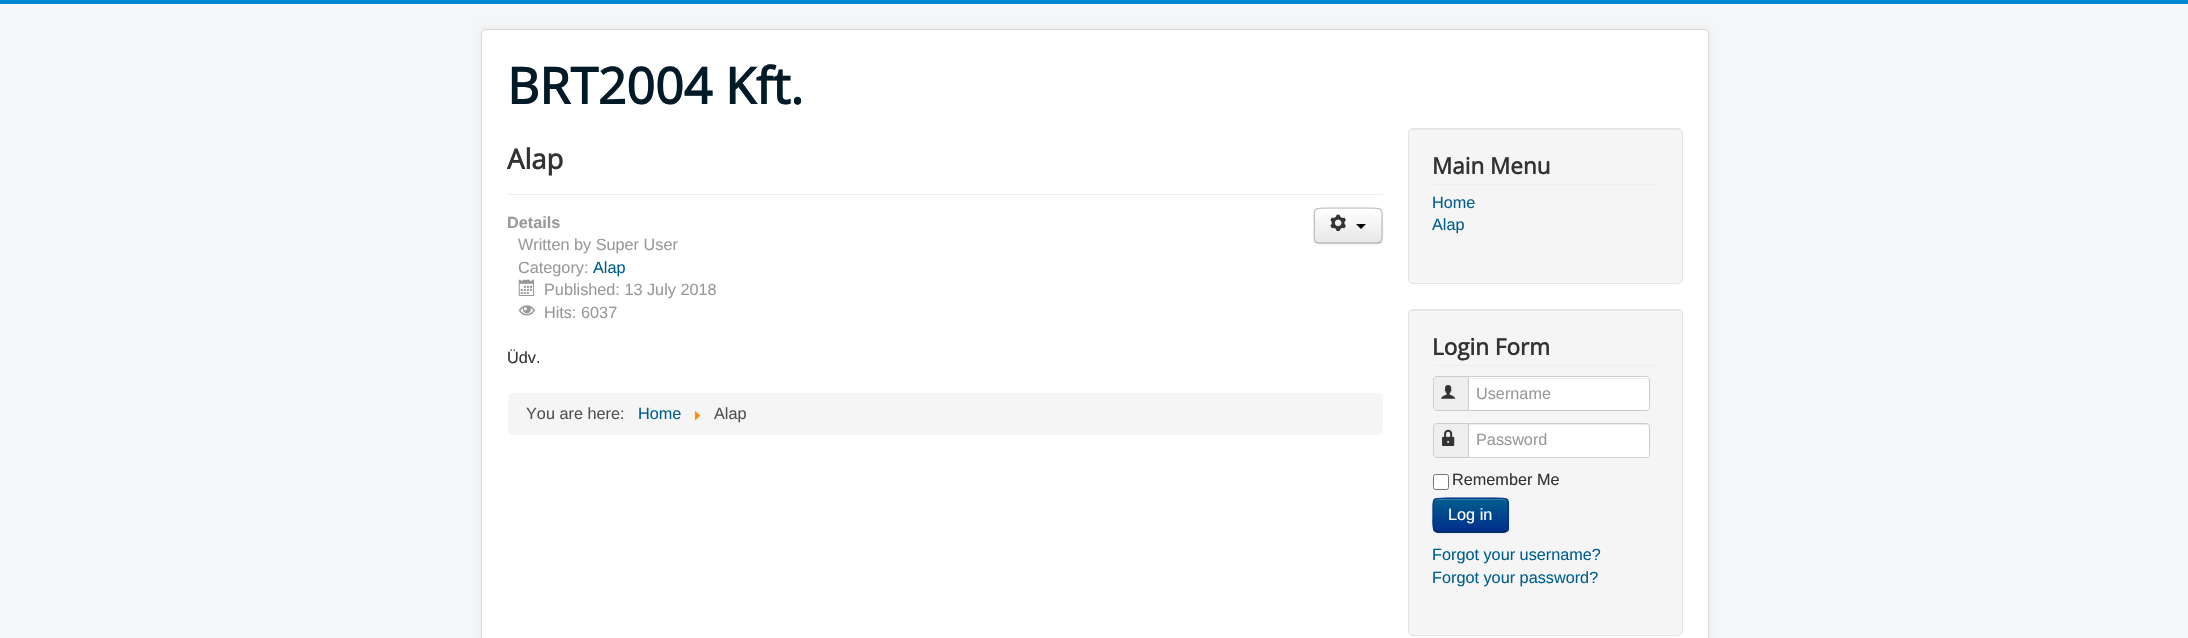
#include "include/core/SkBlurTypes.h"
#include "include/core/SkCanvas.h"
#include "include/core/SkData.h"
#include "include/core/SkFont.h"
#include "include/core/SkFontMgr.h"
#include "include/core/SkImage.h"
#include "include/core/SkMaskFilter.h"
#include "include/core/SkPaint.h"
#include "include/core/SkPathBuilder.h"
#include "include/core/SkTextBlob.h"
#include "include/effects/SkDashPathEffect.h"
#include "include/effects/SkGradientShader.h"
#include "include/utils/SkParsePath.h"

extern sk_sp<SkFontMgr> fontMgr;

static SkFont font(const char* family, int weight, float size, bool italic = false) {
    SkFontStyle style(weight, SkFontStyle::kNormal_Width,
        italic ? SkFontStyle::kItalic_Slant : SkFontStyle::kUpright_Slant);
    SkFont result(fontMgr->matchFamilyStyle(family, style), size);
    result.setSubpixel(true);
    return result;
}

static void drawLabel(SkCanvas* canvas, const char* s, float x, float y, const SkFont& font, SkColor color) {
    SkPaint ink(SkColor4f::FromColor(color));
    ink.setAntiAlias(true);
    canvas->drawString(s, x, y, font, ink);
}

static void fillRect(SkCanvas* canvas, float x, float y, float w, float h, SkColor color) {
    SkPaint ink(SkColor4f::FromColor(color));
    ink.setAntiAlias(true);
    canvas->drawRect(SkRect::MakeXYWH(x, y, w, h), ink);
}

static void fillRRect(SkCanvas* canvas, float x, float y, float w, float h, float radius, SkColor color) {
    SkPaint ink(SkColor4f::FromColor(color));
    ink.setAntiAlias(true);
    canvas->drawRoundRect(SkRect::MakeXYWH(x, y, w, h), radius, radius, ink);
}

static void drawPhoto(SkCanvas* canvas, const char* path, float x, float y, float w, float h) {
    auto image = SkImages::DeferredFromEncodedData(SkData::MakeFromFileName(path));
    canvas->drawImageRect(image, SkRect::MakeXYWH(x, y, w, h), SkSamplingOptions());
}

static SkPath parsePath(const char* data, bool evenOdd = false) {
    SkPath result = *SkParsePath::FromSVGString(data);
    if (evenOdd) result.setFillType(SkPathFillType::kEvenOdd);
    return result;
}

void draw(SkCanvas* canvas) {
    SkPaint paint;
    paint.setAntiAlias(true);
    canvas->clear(0xFFF4F6F7);
    fillRect(canvas, 0, 0, 2188, 4, 0xFF0088CC);
    paint.setColor(0x0D000000);
    paint.setMaskFilter(SkMaskFilter::MakeBlur(kNormal_SkBlurStyle, 4));
    canvas->drawRoundRect(SkRect::MakeXYWH(481, 29, 1228, 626), 5, 5, paint);
    paint.setMaskFilter(nullptr);
    fillRRect(canvas, 481, 29, 1228, 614, 5, 0xFFFFFFFF);
    paint.setStroke(true);
    paint.setStrokeWidth(1);
    paint.setColor(0x26000000);
    canvas->drawRoundRect(SkRect::MakeXYWH(481.5f, 29.5f, 1227, 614), 4.5f, 4.5f, paint);
    SkFont font1 = font("Open Sans", 700, 50);
    drawLabel(canvas, "BRT2004 Kft.", 507, 104, font1, 0xFF001A27);
    fillRect(canvas, 508, 194, 875, 1, 0xFFEEEEEE);
    SkFont font2 = font("Open Sans", 700, 27.5f);
    drawLabel(canvas, "Alap", 507, 169, font2, 0xFF333333);
    SkFont font3 = font("Liberation Sans", 700, 16.25f);
    drawLabel(canvas, "Details", 507, 228, font3, 0xFF999999);
    SkFont font4 = font("Liberation Sans", 400, 16.25f);
    drawLabel(canvas, "Written by Super User", 518, 250, font4, 0xFF999999);
    drawLabel(canvas, "Category:", 518, 273, font4, 0xFF999999);
    drawLabel(canvas, "Alap", 593, 273, font4, 0xFF005E8D);
    drawPhoto(canvas, "assets/img1.png", 518, 279, 16, 17);
    drawLabel(canvas, "Published: 13 July 2018", 544, 295, font4, 0xFF999999);
    drawPhoto(canvas, "assets/img2.png", 518, 305, 17, 11);
    drawLabel(canvas, "Hits: 6037", 544, 318, font4, 0xFF999999);
    paint.setStroke(false);
    paint.setColor(0x0D000000);
    paint.setMaskFilter(SkMaskFilter::MakeBlur(kNormal_SkBlurStyle, 1));
    canvas->drawRoundRect(SkRect::MakeXYWH(1314, 209, 69, 36), 5, 5, paint);
    paint.setMaskFilter(nullptr);
    fillRRect(canvas, 1314, 208, 69, 36, 5, 0xFFF5F5F5);
    canvas->save();
    canvas->clipPath(parsePath("M1319 208H1378C1381 208 1383 210 1383 213V239C1383 242 1381 244 1378 244H1319C1316 244 1314 242 1314 239V213C1314 210 1316 208 1319 208Z"), true);
    {
        const SkColor colors[] = {0xFFFFFFFF, 0xFFE6E6E6};
        const float stops[] = {0, 1};
        const SkPoint ends[] = {{1348, 209}, {1348, 243}};
        paint.setShader(SkGradientShader::MakeLinear(ends, colors, stops, 2, SkTileMode::kClamp));
        paint.setAlpha(255);
    }
    canvas->drawRect(SkRect::MakeXYWH(1314, 209, 69, 34), paint);
    canvas->restore();
    paint.setShader(nullptr);
    paint.setColor(0xFFFFFFFF);
    canvas->drawPath(parsePath("M1319 210H1378C1380 210 1381 212 1381 214C1381 207 1372 209 1367 209H1329C1324 209 1315 207 1315 214C1315 212 1317 210 1319 210Z"), paint);
    paint.setStroke(true);
    paint.setStrokeWidth(1.2f);
    paint.setColor(0xFFA2A2A2);
    canvas->drawPath(parsePath("M1380.5 242C1380 242.5 1378.5 243 1377.5 243H1319C1317.5 243 1316.5 242.5 1315.5 242"), paint);
    paint.setColor(0xFFBBBBBB);
    canvas->drawPath(parsePath("M1315.5 242C1313 239 1314.5 229 1314.5 225.5C1314.5 208 1311 208 1328.5 208H1367.5C1385 208 1382 208 1382 225.5C1382 229 1383 239 1380.5 242"), paint);
    drawPhoto(canvas, "assets/img3.png", 1330, 214, 16, 17);
    paint.setStroke(false);
    paint.setColor(0xFF000000);
    canvas->drawPath(parsePath("M1356 224H1366L1361 229Z"), paint);
    drawLabel(canvas, "Üdv.", 507, 363, font4, 0xFF333333);
    fillRRect(canvas, 508, 393, 875, 42, 5, 0xFFF5F5F5);
    drawLabel(canvas, "You are here:", 526, 419, font4, 0xFF515151);
    drawLabel(canvas, "Home", 638, 419, font4, 0xFF005E8D);
    drawPhoto(canvas, "assets/img4.png", 694, 411, 7, 9);
    drawLabel(canvas, "Alap", 714, 419, font4, 0xFF515151);
    fillRRect(canvas, 1408, 128, 275, 156, 5, 0xFFF5F5F5);
    paint.setColor(0xFFE9E9E9);
    canvas->drawPath(parsePath("M1412 130H1678C1680 130 1681 132 1681 134C1681 131 1680 129 1677 129H1413C1410 129 1409 131 1409 134C1409 132 1410 130 1412 130Z"), paint);
    paint.setStroke(true);
    paint.setStrokeWidth(1);
    paint.setColor(0xFFE3E3E3);
    canvas->drawRoundRect(SkRect::MakeXYWH(1408.5f, 128.5f, 274, 155), 4.5f, 4.5f, paint);
    fillRect(canvas, 1433, 184, 225, 1, 0xFFEEEEEE);
    SkFont font5 = font("Open Sans", 700, 22.5f);
    drawLabel(canvas, "Main Menu", 1432, 174, font5, 0xFF333333);
    drawLabel(canvas, "Home", 1432, 208, font4, 0xFF005E8D);
    drawLabel(canvas, "Alap", 1432, 230, font4, 0xFF005E8D);
    fillRRect(canvas, 1408, 309, 275, 327, 5, 0xFFF5F5F5);
    paint.setStroke(false);
    paint.setColor(0xFFE9E9E9);
    canvas->drawPath(parsePath("M1412 311H1678C1680 311 1681 313 1681 315C1681 312 1680 310 1677 310H1413C1410 310 1409 312 1409 315C1409 313 1410 311 1412 311Z"), paint);
    paint.setStroke(true);
    paint.setColor(0xFFE3E3E3);
    canvas->drawRoundRect(SkRect::MakeXYWH(1408.5f, 309.5f, 274, 326), 4.5f, 4.5f, paint);
    fillRect(canvas, 1433, 365, 225, 1, 0xFFEEEEEE);
    drawLabel(canvas, "Login Form", 1432, 355, font5, 0xFF333333);
    paint.setStroke(false);
    paint.setColor(0xFFEEEEEE);
    canvas->drawPath(parsePath("M1437 376.5H1468.5V410.5H1437C1435 410.5 1433.5 409 1433.5 407V380C1433.5 378 1435 376.5 1437 376.5Z"), paint);
    paint.setStroke(true);
    paint.setColor(0xFFCCCCCC);
    canvas->drawPath(parsePath("M1437 376.5H1468.5V410.5H1437C1435 410.5 1433.5 409 1433.5 407V380C1433.5 378 1435 376.5 1437 376.5Z"), paint);
    drawPhoto(canvas, "assets/img5.png", 1441, 385, 15, 14);
    paint.setStroke(false);
    paint.setColor(0xFFFFFFFF);
    canvas->drawPath(parsePath("M1468 376H1646C1648 376 1650 378 1650 380V407C1650 409 1648 411 1646 411H1468Z"), paint);
    paint.setColor(0xFFECECEC);
    canvas->drawPath(parsePath("M1469 379H1646C1648 379 1649 380 1649 381L1648 379L1647 378H1469Z"), paint);
    paint.setStroke(true);
    paint.setColor(0xFFCCCCCC);
    canvas->drawPath(parsePath("M1468.5 376.5H1646C1648 376.5 1649.5 378 1649.5 380V407C1649.5 409 1648 410.5 1646 410.5H1468.5Z"), paint);
    drawLabel(canvas, "Username", 1476, 399, font4, 0xFF999999);
    paint.setStroke(false);
    paint.setColor(0xFFEEEEEE);
    canvas->drawPath(parsePath("M1437 423.5H1468.5V457.5H1437C1435 457.5 1433.5 456 1433.5 454V427C1433.5 425 1435 423.5 1437 423.5Z"), paint);
    paint.setStroke(true);
    paint.setColor(0xFFCCCCCC);
    canvas->drawPath(parsePath("M1437 423.5H1468.5V457.5H1437C1435 457.5 1433.5 456 1433.5 454V427C1433.5 425 1435 423.5 1437 423.5Z"), paint);
    drawPhoto(canvas, "assets/img6.png", 1442, 429, 13, 17);
    paint.setStroke(false);
    paint.setColor(0xFFFFFFFF);
    canvas->drawPath(parsePath("M1468 423H1646C1648 423 1650 425 1650 427V454C1650 456 1648 458 1646 458H1468Z"), paint);
    paint.setColor(0xFFECECEC);
    canvas->drawPath(parsePath("M1469 425H1647L1648 426L1649 428C1649 426 1649 424 1647 424H1469Z"), paint);
    paint.setStroke(true);
    paint.setColor(0xFFCCCCCC);
    canvas->drawPath(parsePath("M1468.5 423.5H1646C1648 423.5 1649.5 425 1649.5 427V454C1649.5 456 1648 457.5 1646 457.5H1468.5Z"), paint);
    drawLabel(canvas, "Password", 1476, 445, font4, 0xFF999999);
    paint.setStroke(false);
    paint.setColor(0xFFFFFFFF);
    canvas->drawRoundRect(SkRect::MakeXYWH(1433.5f, 474.5f, 15, 15), 2, 2, paint);
    paint.setStroke(true);
    paint.setColor(0xFF767676);
    canvas->drawRoundRect(SkRect::MakeXYWH(1433.5f, 474.5f, 15, 15), 2, 2, paint);
    drawLabel(canvas, "Remember Me", 1452, 485, font4, 0xFF333333);
    paint.setStroke(false);
    paint.setColor(0x0D000000);
    paint.setMaskFilter(SkMaskFilter::MakeBlur(kNormal_SkBlurStyle, 1));
    canvas->drawRoundRect(SkRect::MakeXYWH(1433, 499, 76, 35), 5, 5, paint);
    paint.setMaskFilter(nullptr);
    fillRRect(canvas, 1433, 498, 76, 35, 5, 0xFF004B8D);
    canvas->save();
    canvas->clipPath(parsePath("M1438 498H1504C1507 498 1509 500 1509 503V528C1509 531 1507 533 1504 533H1438C1435 533 1433 531 1433 528V503C1433 500 1435 498 1438 498Z"), true);
    {
        const SkColor colors[] = {0xFF005E8D, 0xFF002F8D};
        const float stops[] = {0, 1};
        const SkPoint ends[] = {{1471, 499}, {1471, 531}};
        paint.setShader(SkGradientShader::MakeLinear(ends, colors, stops, 2, SkTileMode::kClamp));
        paint.setAlpha(255);
    }
    canvas->drawRect(SkRect::MakeXYWH(1433, 499, 76, 32), paint);
    canvas->restore();
    paint.setShader(nullptr);
    paint.setColor(0x33FFFFFF);
    canvas->drawPath(parsePath("M1438 500H1504C1506 500 1508 502 1508 504C1508 496 1498 499 1493 499H1449C1444 499 1434 496 1434 504C1434 502 1435 500 1438 500Z"), paint);
    paint.setStroke(true);
    paint.setStrokeWidth(1.2f);
    paint.setColor(0xFF001641);
    canvas->drawPath(parsePath("M1507 530.5L1504 532H1437L1434.5 530.5"), paint);
    paint.setColor(0xFF002F8D);
    canvas->drawPath(parsePath("M1434.5 530.5C1432 528 1433 518 1433 515C1433 497 1430.5 498 1448.5 498H1492.5C1511 498 1508 497 1508 515C1508 518 1509.5 528 1507 530.5"), paint);
    drawLabel(canvas, "Log in", 1448, 520, font4, 0xFFFFFFFF);
    drawLabel(canvas, "Forgot your username?", 1432, 560, font4, 0xFF005E8D);
    drawLabel(canvas, "Forgot your password?", 1432, 583, font4, 0xFF005E8D);
}
